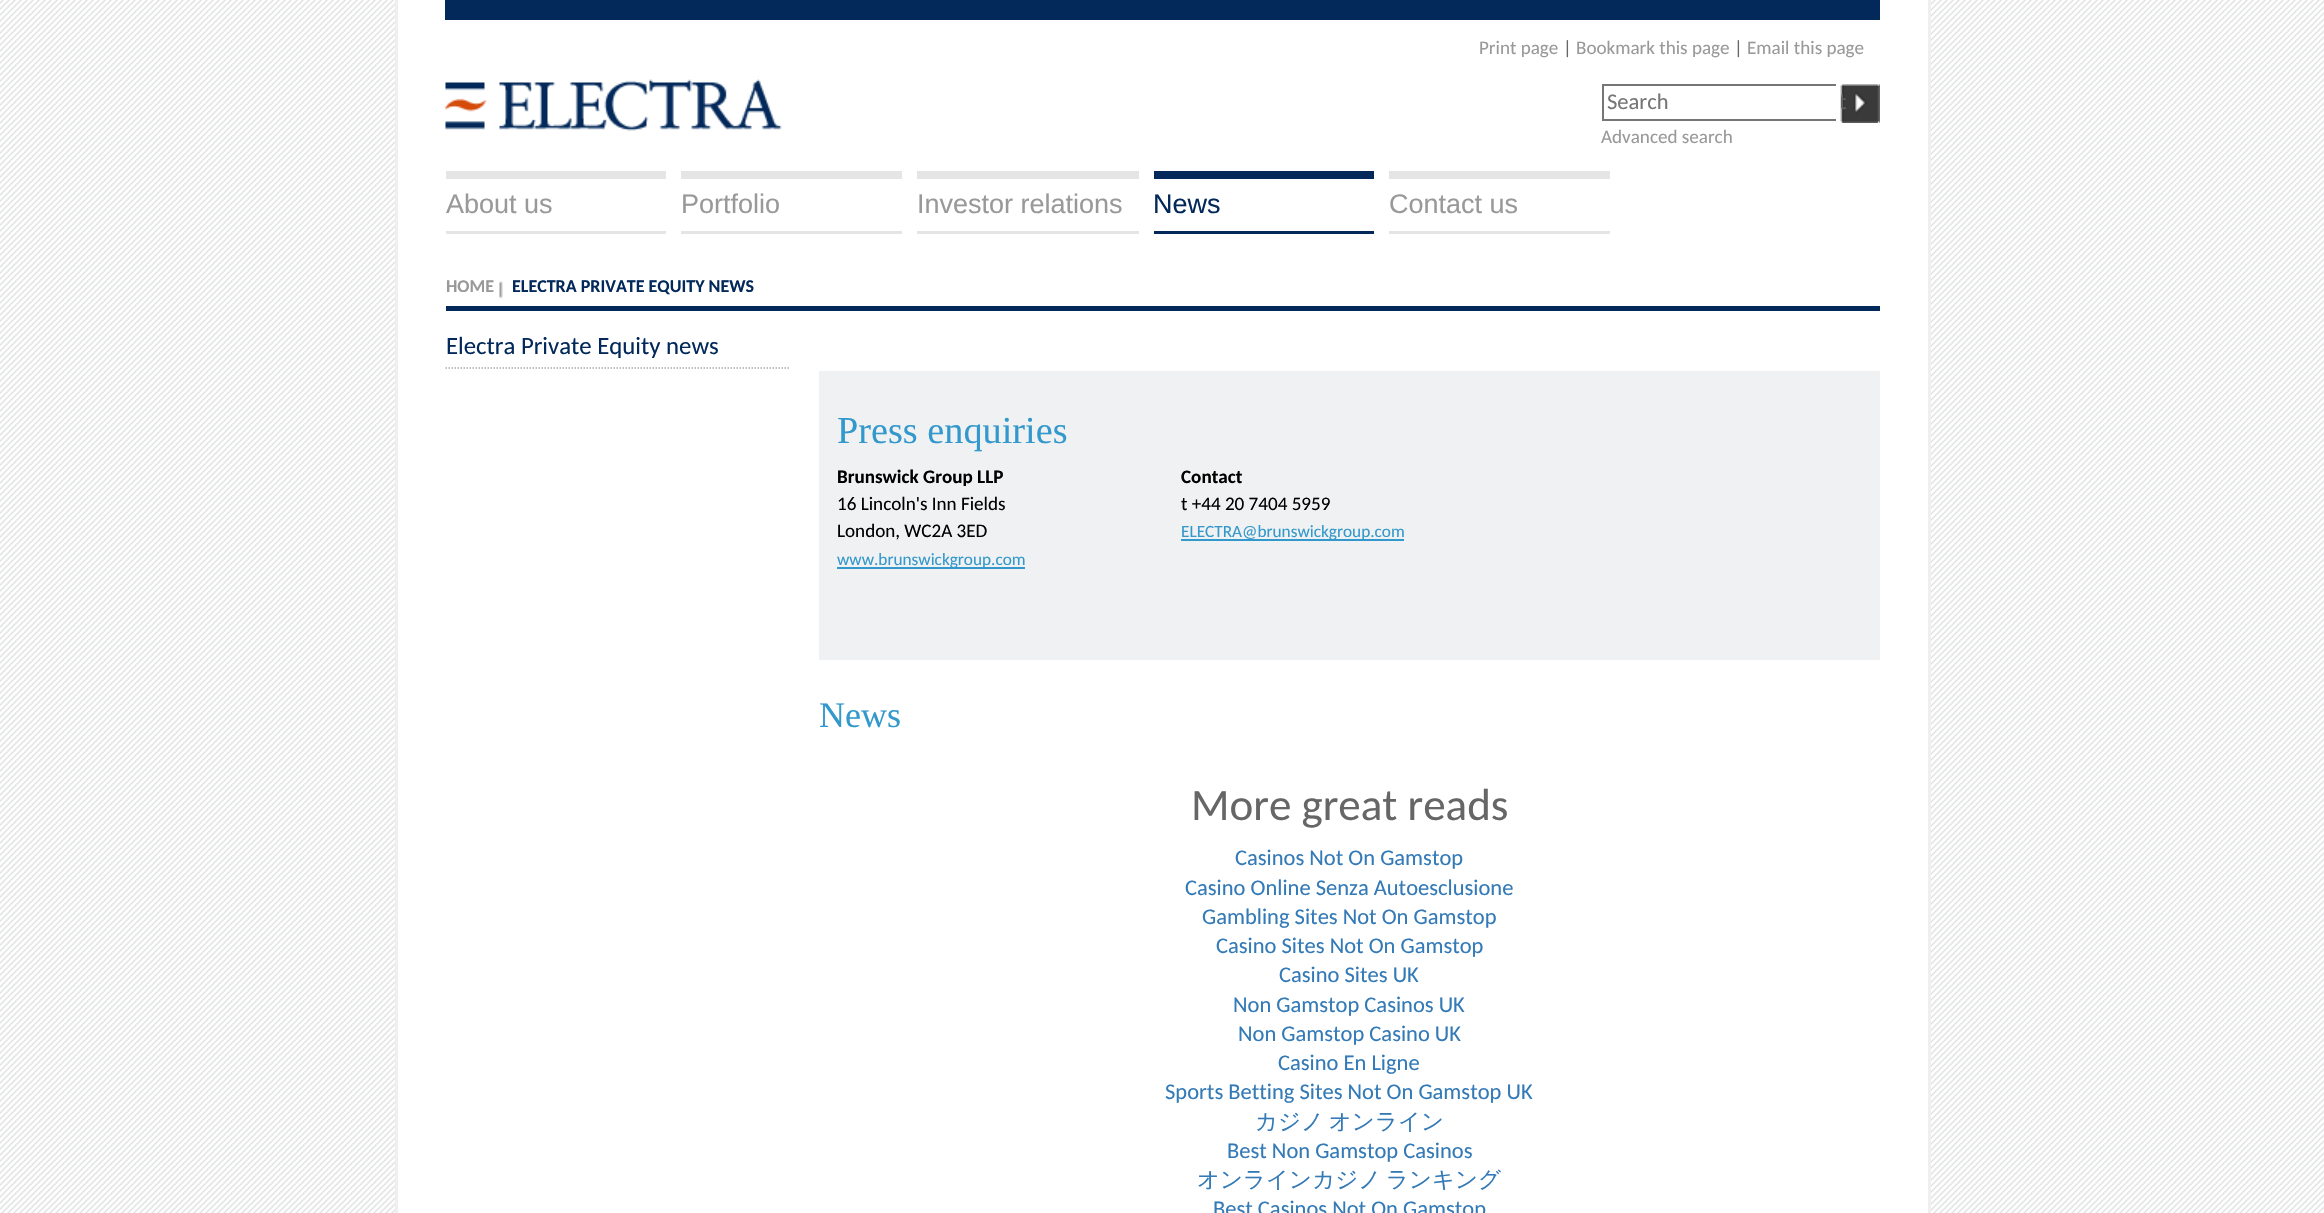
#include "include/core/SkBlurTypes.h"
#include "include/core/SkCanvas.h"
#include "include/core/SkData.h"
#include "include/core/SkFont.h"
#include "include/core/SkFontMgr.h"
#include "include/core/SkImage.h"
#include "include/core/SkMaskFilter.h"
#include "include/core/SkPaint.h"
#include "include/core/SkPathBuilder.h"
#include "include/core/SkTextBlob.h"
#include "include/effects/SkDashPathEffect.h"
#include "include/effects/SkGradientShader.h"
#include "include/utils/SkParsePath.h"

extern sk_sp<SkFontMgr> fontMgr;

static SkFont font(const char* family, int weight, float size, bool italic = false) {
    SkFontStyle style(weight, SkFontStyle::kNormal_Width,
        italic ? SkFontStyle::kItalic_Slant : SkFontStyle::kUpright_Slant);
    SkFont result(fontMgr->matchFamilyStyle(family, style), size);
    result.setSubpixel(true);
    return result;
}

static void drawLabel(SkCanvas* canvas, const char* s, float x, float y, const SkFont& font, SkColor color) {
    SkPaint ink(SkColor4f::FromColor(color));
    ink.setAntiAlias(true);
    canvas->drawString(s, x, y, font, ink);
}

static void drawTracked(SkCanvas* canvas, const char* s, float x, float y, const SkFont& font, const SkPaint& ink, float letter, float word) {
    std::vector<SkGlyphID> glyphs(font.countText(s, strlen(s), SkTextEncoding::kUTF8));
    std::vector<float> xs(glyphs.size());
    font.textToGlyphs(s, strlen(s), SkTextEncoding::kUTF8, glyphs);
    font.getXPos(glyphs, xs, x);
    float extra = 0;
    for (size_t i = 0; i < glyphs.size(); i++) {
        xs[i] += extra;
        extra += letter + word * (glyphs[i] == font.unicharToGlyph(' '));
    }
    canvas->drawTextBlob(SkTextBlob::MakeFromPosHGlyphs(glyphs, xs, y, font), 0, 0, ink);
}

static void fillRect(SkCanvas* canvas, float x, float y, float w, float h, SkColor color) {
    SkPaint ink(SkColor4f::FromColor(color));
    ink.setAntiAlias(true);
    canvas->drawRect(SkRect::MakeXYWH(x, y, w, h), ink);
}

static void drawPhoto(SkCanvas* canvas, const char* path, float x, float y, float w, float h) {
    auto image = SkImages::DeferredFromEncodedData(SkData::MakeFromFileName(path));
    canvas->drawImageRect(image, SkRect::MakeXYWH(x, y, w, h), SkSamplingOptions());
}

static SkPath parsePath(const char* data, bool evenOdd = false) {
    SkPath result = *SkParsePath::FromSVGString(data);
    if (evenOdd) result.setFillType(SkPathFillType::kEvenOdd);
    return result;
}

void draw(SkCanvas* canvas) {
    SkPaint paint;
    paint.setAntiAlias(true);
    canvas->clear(0xFFFFFFFF);
    drawPhoto(canvas, "assets/img1.png", 0, 0, 2324, 1213);
    fillRect(canvas, 398, 0, 1530, 1213, 0xFFFFFFFF);
    fillRect(canvas, 1928, 0, 3, 1213, 0xFFEFEFEF);
    fillRect(canvas, 395, 0, 3, 1213, 0xFFEFEFEF);
    fillRect(canvas, 445, 0, 1435, 20, 0xFF03295A);
    SkFont font1 = font("Carlito", 400, 19.1f);
    drawLabel(canvas, "Print page", 1479, 54, font1, 0xFF999999);
    drawLabel(canvas, "|", 1563, 54, font1, 0xFF666666);
    drawLabel(canvas, "Bookmark this page", 1576, 54, font1, 0xFF999999);
    drawLabel(canvas, "|", 1734, 54, font1, 0xFF666666);
    drawLabel(canvas, "Email this page", 1747, 54, font1, 0xFF999999);
    drawPhoto(canvas, "assets/img2.png", 445, 79, 337, 52);
    fillRect(canvas, 1602, 84, 234, 2, 0xFF767676);
    fillRect(canvas, 1602, 119, 234, 2, 0xFF767676);
    fillRect(canvas, 1602, 84, 2, 36, 0xFF767676);
    SkFont font2 = font("Carlito", 400, 22.5f);
    drawLabel(canvas, "Search", 1607, 109, font2, 0xFF757575);
    fillRect(canvas, 1879, 84, 1, 39, 0xFF666666);
    drawPhoto(canvas, "assets/img3.png", 1840, 84, 40, 39);
    canvas->save();
    canvas->clipRect(SkRect::MakeXYWH(1841, 84, 39, 39));
    drawLabel(canvas, "t", 1839, 109, font2, 0xFF606060);
    canvas->restore();
    drawLabel(canvas, "Advanced search", 1601, 143, font1, 0xFF999999);
    fillRect(canvas, 446, 171, 220, 8, 0xFFE5E5E5);
    fillRect(canvas, 446, 231, 220, 3, 0xFFE5E5E5);
    SkFont font3 = font("Liberation Sans", 400, 27);
    drawLabel(canvas, "About us", 446, 213, font3, 0xFF999999);
    fillRect(canvas, 681, 171, 221, 8, 0xFFE5E5E5);
    fillRect(canvas, 681, 231, 221, 3, 0xFFE5E5E5);
    drawLabel(canvas, "Portfolio", 681, 213, font3, 0xFF999999);
    fillRect(canvas, 917, 171, 222, 8, 0xFFE5E5E5);
    fillRect(canvas, 917, 231, 222, 3, 0xFFE5E5E5);
    drawLabel(canvas, "Investor relations", 917, 213, font3, 0xFF999999);
    fillRect(canvas, 1154, 171, 220, 8, 0xFF03295B);
    fillRect(canvas, 1154, 231, 220, 3, 0xFF03295B);
    drawLabel(canvas, "News", 1153, 213, font3, 0xFF03295B);
    fillRect(canvas, 1389, 171, 221, 8, 0xFFE5E5E5);
    fillRect(canvas, 1389, 231, 221, 3, 0xFFE5E5E5);
    drawLabel(canvas, "Contact us", 1389, 213, font3, 0xFF999999);
    fillRect(canvas, 446, 306, 1434, 5, 0xFF03295B);
    drawPhoto(canvas, "assets/img4.png", 499, 280, 4, 19);
    SkFont font4 = font("Carlito", 700, 18);
    drawLabel(canvas, "HOME", 446, 292, font4, 0xFF999999);
    drawLabel(canvas, "ELECTRA PRIVATE EQUITY NEWS", 512, 292, font4, 0xFF03295B);
    paint.setStroke(true);
    paint.setStrokeWidth(1.5f);
    paint.setColor(0xFFAAAAAA);
    paint.setPathEffect(SkDashPathEffect::Make({{1.5f, 1.5f}}, 0));
    canvas->drawPath(parsePath("M445.5 368H789"), paint);
    paint.setPathEffect(nullptr);
    SkFont font5 = font("Carlito", 400, 24.75f);
    drawLabel(canvas, "Electra Private Equity news", 446, 354, font5, 0xFF03295B);
    fillRect(canvas, 819, 371, 1061, 289, 0xFFF0F1F2);
    SkFont font6 = font("Liberation Serif", 400, 38.25f);
    drawLabel(canvas, "Press enquiries", 837, 443, font6, 0xFF3399CC);
    SkFont font7 = font("Carlito", 700, 19.1f);
    drawLabel(canvas, "Brunswick Group LLP", 837, 483, font7, 0xFF000000);
    drawLabel(canvas, "16 Lincoln's Inn Fields", 837, 510, font1, 0xFF000000);
    drawLabel(canvas, "London, WC2A 3ED", 837, 537, font1, 0xFF000000);
    fillRect(canvas, 837, 567, 188, 2, 0xFF3399CC);
    SkFont font8 = font("Carlito", 400, 17.25f);
    drawLabel(canvas, "www.brunswickgroup.com", 837, 565, font8, 0xFF3399CC);
    drawLabel(canvas, "Contact", 1181, 483, font7, 0xFF000000);
    drawLabel(canvas, "t +44 20 7404 5959", 1181, 510, font1, 0xFF000000);
    fillRect(canvas, 1181, 539, 223, 2, 0xFF3399CC);
    drawLabel(canvas, "ELECTRA@brunswickgroup.com", 1181, 537, font8, 0xFF3399CC);
    SkFont font9 = font("Liberation Serif", 400, 36);
    drawLabel(canvas, "News", 819, 727, font9, 0xFF3399CC);
    SkFont font10 = font("Carlito", 400, 45);
    drawLabel(canvas, "More great reads", 1191, 820, font10, 0xFF666666);
    drawLabel(canvas, "Casinos Not On Gamstop", 1235, 865, font2, 0xFF337AB7);
    drawLabel(canvas, "Casino Online Senza Autoesclusione", 1185, 895, font2, 0xFF337AB7);
    drawLabel(canvas, "Gambling Sites Not On Gamstop", 1202, 924, font2, 0xFF337AB7);
    drawLabel(canvas, "Casino Sites Not On Gamstop", 1216, 953, font2, 0xFF337AB7);
    drawLabel(canvas, "Casino Sites UK", 1279, 982, font2, 0xFF337AB7);
    drawLabel(canvas, "Non Gamstop Casinos UK", 1233, 1012, font2, 0xFF337AB7);
    drawLabel(canvas, "Non Gamstop Casino UK", 1238, 1041, font2, 0xFF337AB7);
    drawLabel(canvas, "Casino En Ligne", 1278, 1070, font2, 0xFF337AB7);
    drawLabel(canvas, "Sports Betting Sites Not On Gamstop UK", 1165, 1099, font2, 0xFF337AB7);
    SkFont font11 = font("WenQuanYi Zen Hei", 500, 22.5f);
    paint.setStroke(false);
    paint.setColor(0xFF337AB7);
    drawTracked(canvas, "カジノ オンライン", 1255, 1129, font11, paint, 0, -2);
    drawLabel(canvas, "Best Non Gamstop Casinos", 1227, 1158, font2, 0xFF337AB7);
    drawTracked(canvas, "オンラインカジノ ランキング", 1197, 1187, font11, paint, 0, -2);
    drawLabel(canvas, "Best Casinos Not On Gamstop", 1213, 1216, font2, 0xFF337AB7);
}
